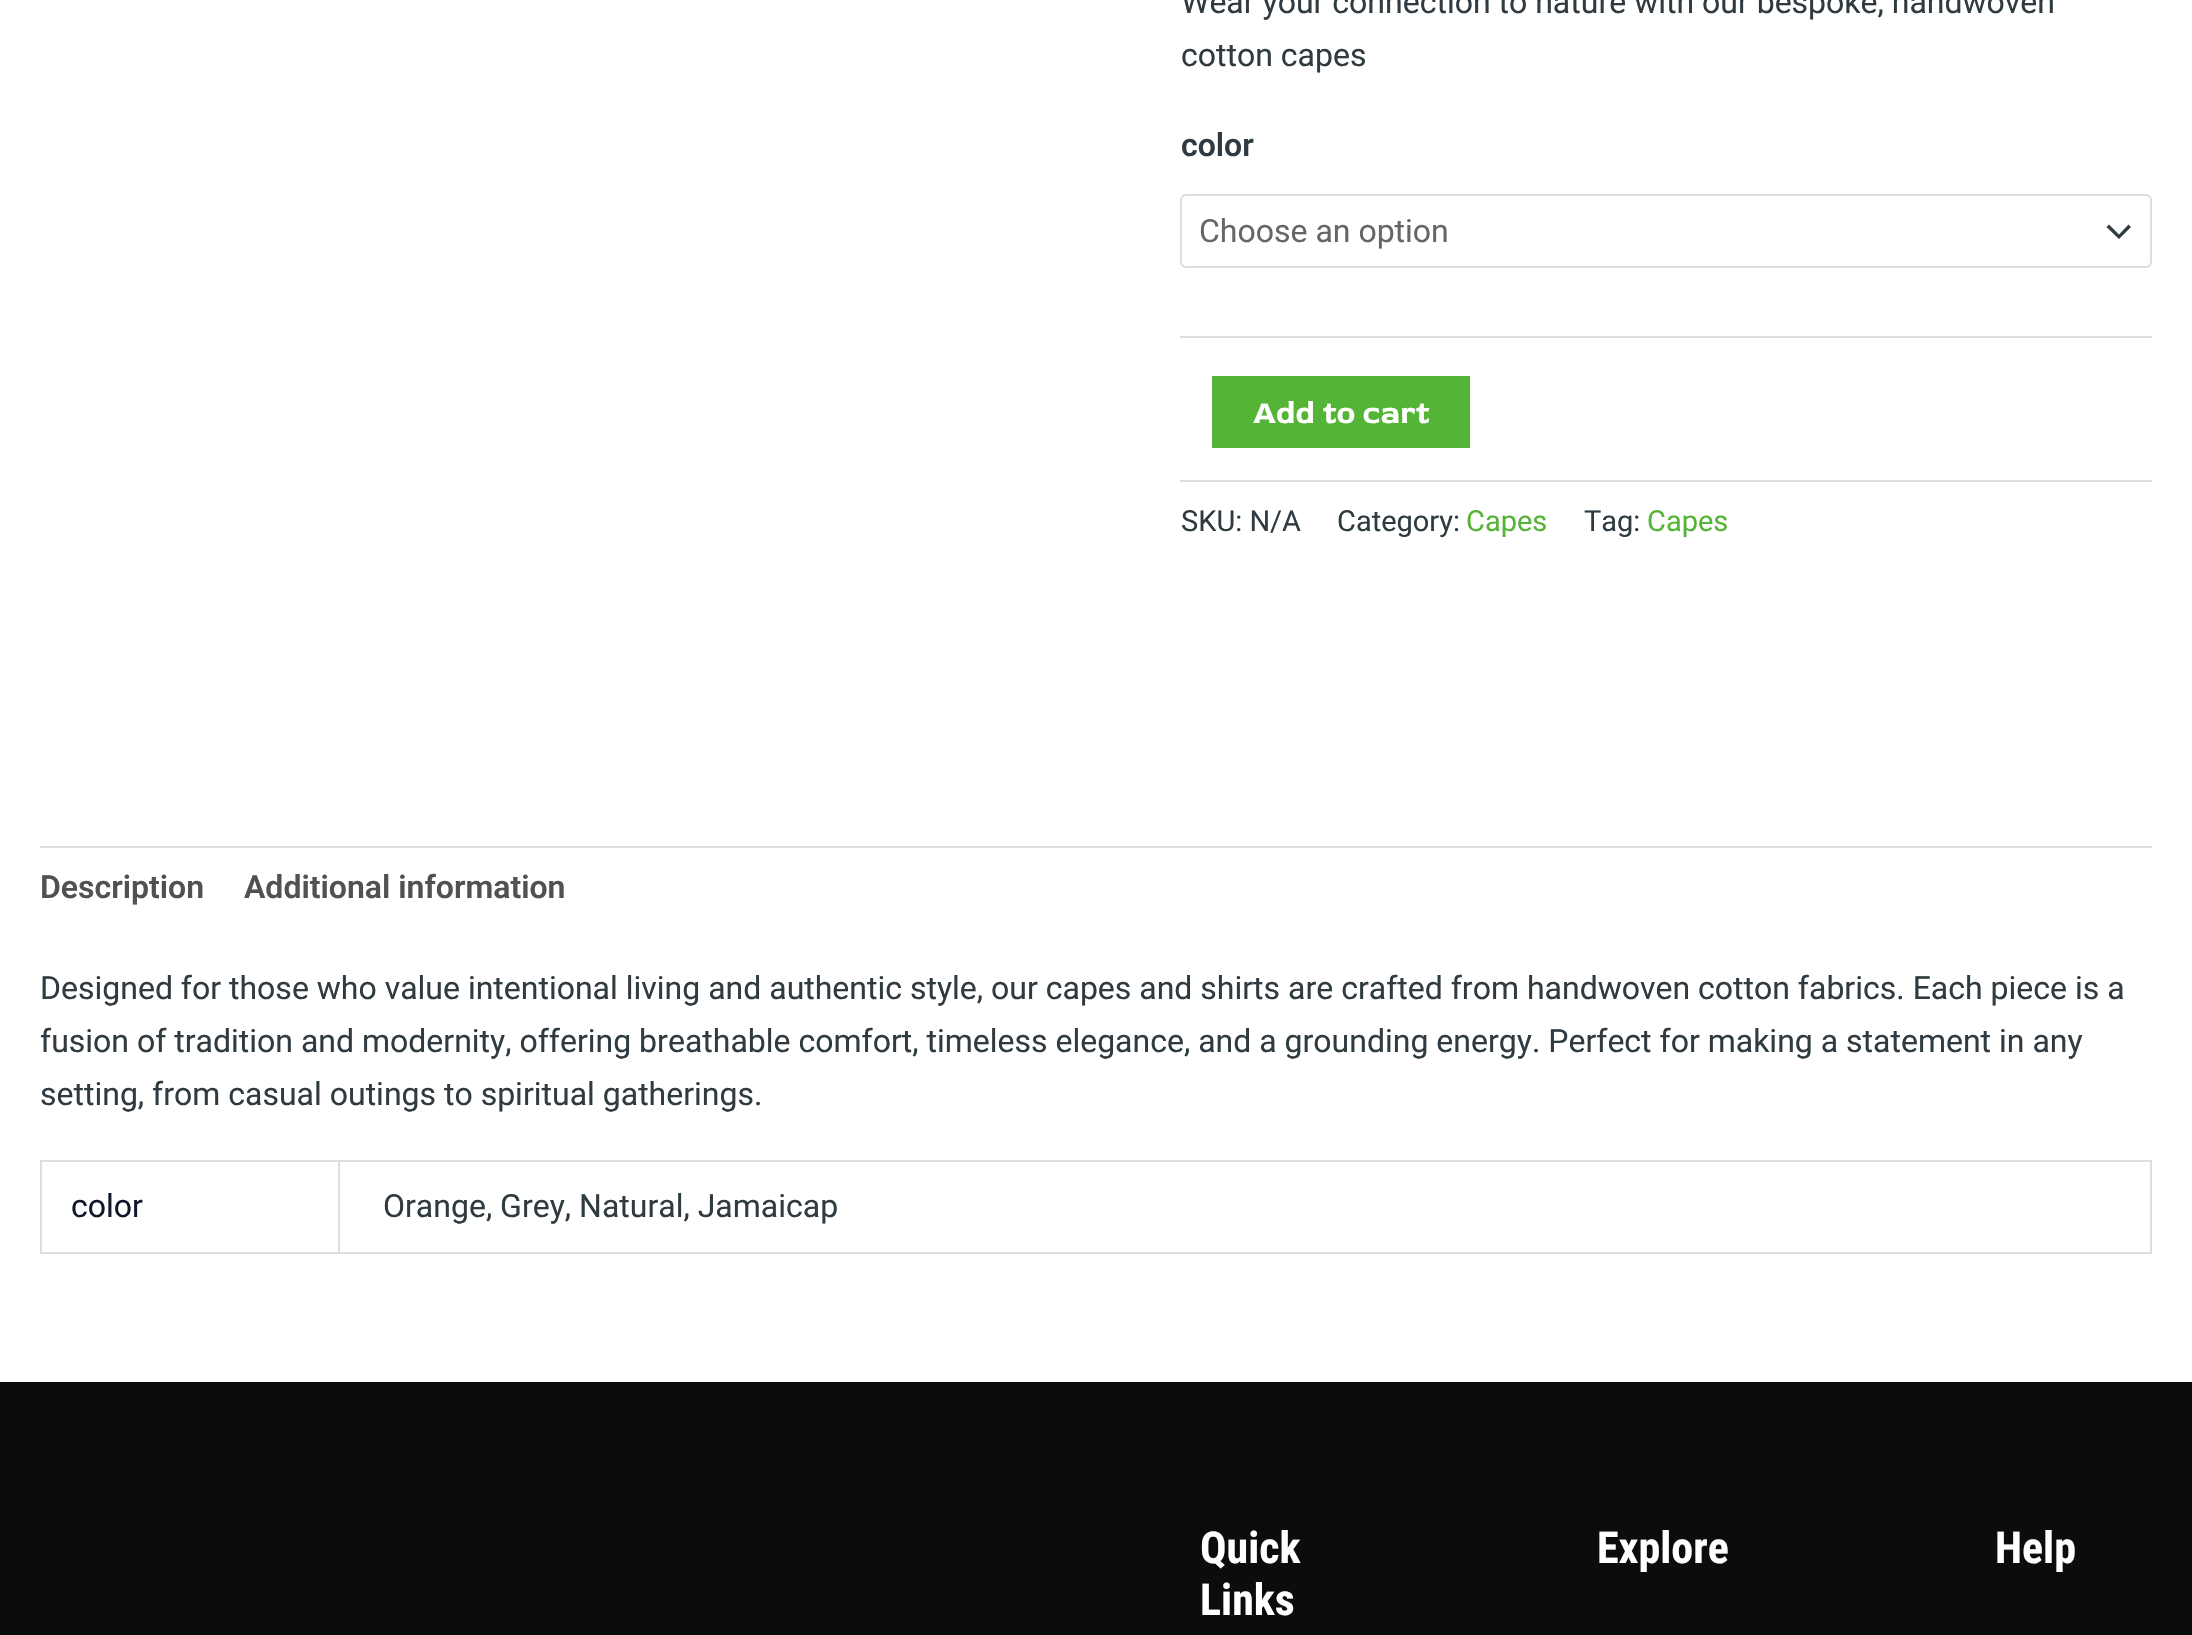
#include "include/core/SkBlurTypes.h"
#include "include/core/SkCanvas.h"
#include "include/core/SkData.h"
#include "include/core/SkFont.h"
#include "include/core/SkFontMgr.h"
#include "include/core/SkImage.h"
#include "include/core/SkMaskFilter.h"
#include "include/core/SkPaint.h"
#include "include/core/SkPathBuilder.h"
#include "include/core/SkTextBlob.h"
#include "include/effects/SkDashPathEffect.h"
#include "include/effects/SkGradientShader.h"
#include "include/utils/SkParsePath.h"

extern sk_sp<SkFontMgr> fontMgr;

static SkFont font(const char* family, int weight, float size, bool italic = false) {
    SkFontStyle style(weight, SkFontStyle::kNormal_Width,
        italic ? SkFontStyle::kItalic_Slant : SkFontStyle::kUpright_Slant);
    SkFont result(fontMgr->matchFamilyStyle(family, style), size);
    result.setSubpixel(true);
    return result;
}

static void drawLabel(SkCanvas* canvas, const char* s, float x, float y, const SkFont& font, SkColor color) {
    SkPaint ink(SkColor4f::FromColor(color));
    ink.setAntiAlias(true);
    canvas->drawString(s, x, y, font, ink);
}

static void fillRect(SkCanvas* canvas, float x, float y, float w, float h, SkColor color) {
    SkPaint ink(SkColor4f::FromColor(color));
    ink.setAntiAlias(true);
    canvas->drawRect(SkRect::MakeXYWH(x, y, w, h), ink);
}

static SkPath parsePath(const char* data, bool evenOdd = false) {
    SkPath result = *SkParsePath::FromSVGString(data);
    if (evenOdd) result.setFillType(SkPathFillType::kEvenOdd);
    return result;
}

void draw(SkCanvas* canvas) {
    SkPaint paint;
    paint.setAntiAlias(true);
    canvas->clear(0xFFFFFFFF);
    SkFont font1 = font("Roboto", 400, 32);
    drawLabel(canvas, "Wear your connection to nature with our bespoke, handwoven", 1181, 13, font1, 0xFF2F3B40);
    drawLabel(canvas, "cotton capes", 1181, 66, font1, 0xFF2F3B40);
    fillRect(canvas, 1180, 336, 972, 2, 0xFFDDDDDD);
    SkFont font2 = font("Roboto", 600, 32);
    drawLabel(canvas, "color", 1181, 156, font2, 0xFF2F3B40);
    paint.setColor(0xFF2F3B40);
    canvas->drawPath(parsePath("M2106.5 227L2119 239L2131 227L2128.5 224.5L2119 234.5L2109 224.5Z"), paint);
    paint.setStroke(true);
    paint.setStrokeWidth(2);
    paint.setColor(0xFFDDDDDD);
    canvas->drawRoundRect(SkRect::MakeXYWH(1181, 195, 970, 72), 5, 5, paint);
    drawLabel(canvas, "Choose an option", 1199, 242, font1, 0xFF666666);
    fillRect(canvas, 1212, 376, 258, 72, 0xFF54B435);
    SkFont font3 = font("Red Rose", 700, 32);
    drawLabel(canvas, "Add to cart", 1253, 423, font3, 0xFFFFFFFF);
    fillRect(canvas, 1180, 480, 972, 2, 0xFFDDDDDD);
    SkFont font4 = font("Roboto", 400, 29);
    drawLabel(canvas, "SKU: N/A", 1181, 531, font4, 0xFF2F3B40);
    drawLabel(canvas, "Category:", 1337, 531, font4, 0xFF2F3B40);
    drawLabel(canvas, "Capes", 1466, 531, font4, 0xFF54B435);
    drawLabel(canvas, "Tag:", 1584, 531, font4, 0xFF2F3B40);
    drawLabel(canvas, "Capes", 1647, 531, font4, 0xFF54B435);
    fillRect(canvas, 40, 846, 2112, 2, 0xFFDDDDDD);
    drawLabel(canvas, "Description", 40, 898, font2, 0xFF515151);
    drawLabel(canvas, "Additional information", 244, 898, font2, 0xFF515151);
    drawLabel(canvas, "Designed for those who value intentional living and authentic style, our capes and shirts are crafted from handwoven cotton fabrics. Each piece is a", 40, 999, font1, 0xFF2F3B40);
    drawLabel(canvas, "fusion of tradition and modernity, offering breathable comfort, timeless elegance, and a grounding energy. Perfect for making a statement in any", 40, 1052, font1, 0xFF2F3B40);
    drawLabel(canvas, "setting, from casual outings to spiritual gatherings.", 40, 1105, font1, 0xFF2F3B40);
    fillRect(canvas, 40, 1160, 2112, 2, 0xFFDDDDDD);
    fillRect(canvas, 338, 1162, 2, 92, 0xFFDDDDDD);
    fillRect(canvas, 40, 1252, 300, 2, 0xFFDDDDDD);
    fillRect(canvas, 40, 1162, 2, 92, 0xFFDDDDDD);
    drawLabel(canvas, "color", 71, 1217, font1, 0xFF0F172A);
    fillRect(canvas, 2150, 1162, 2, 92, 0xFFDDDDDD);
    fillRect(canvas, 340, 1252, 1812, 2, 0xFFDDDDDD);
    drawLabel(canvas, "Orange, Grey, Natural, Jamaicap", 383, 1217, font1, 0xFF2F3B40);
    fillRect(canvas, 0, 1382, 2192, 253, 0xFF0B0D0A);
    SkFont font5 = font("Roboto Condensed", 700, 44);
    drawLabel(canvas, "Quick", 1200, 1563, font5, 0xFFFFFFFF);
    drawLabel(canvas, "Links", 1200, 1615, font5, 0xFFFFFFFF);
    drawLabel(canvas, "Explore", 1597, 1563, font5, 0xFFFFFFFF);
    drawLabel(canvas, "Help", 1995, 1563, font5, 0xFFFFFFFF);
}
